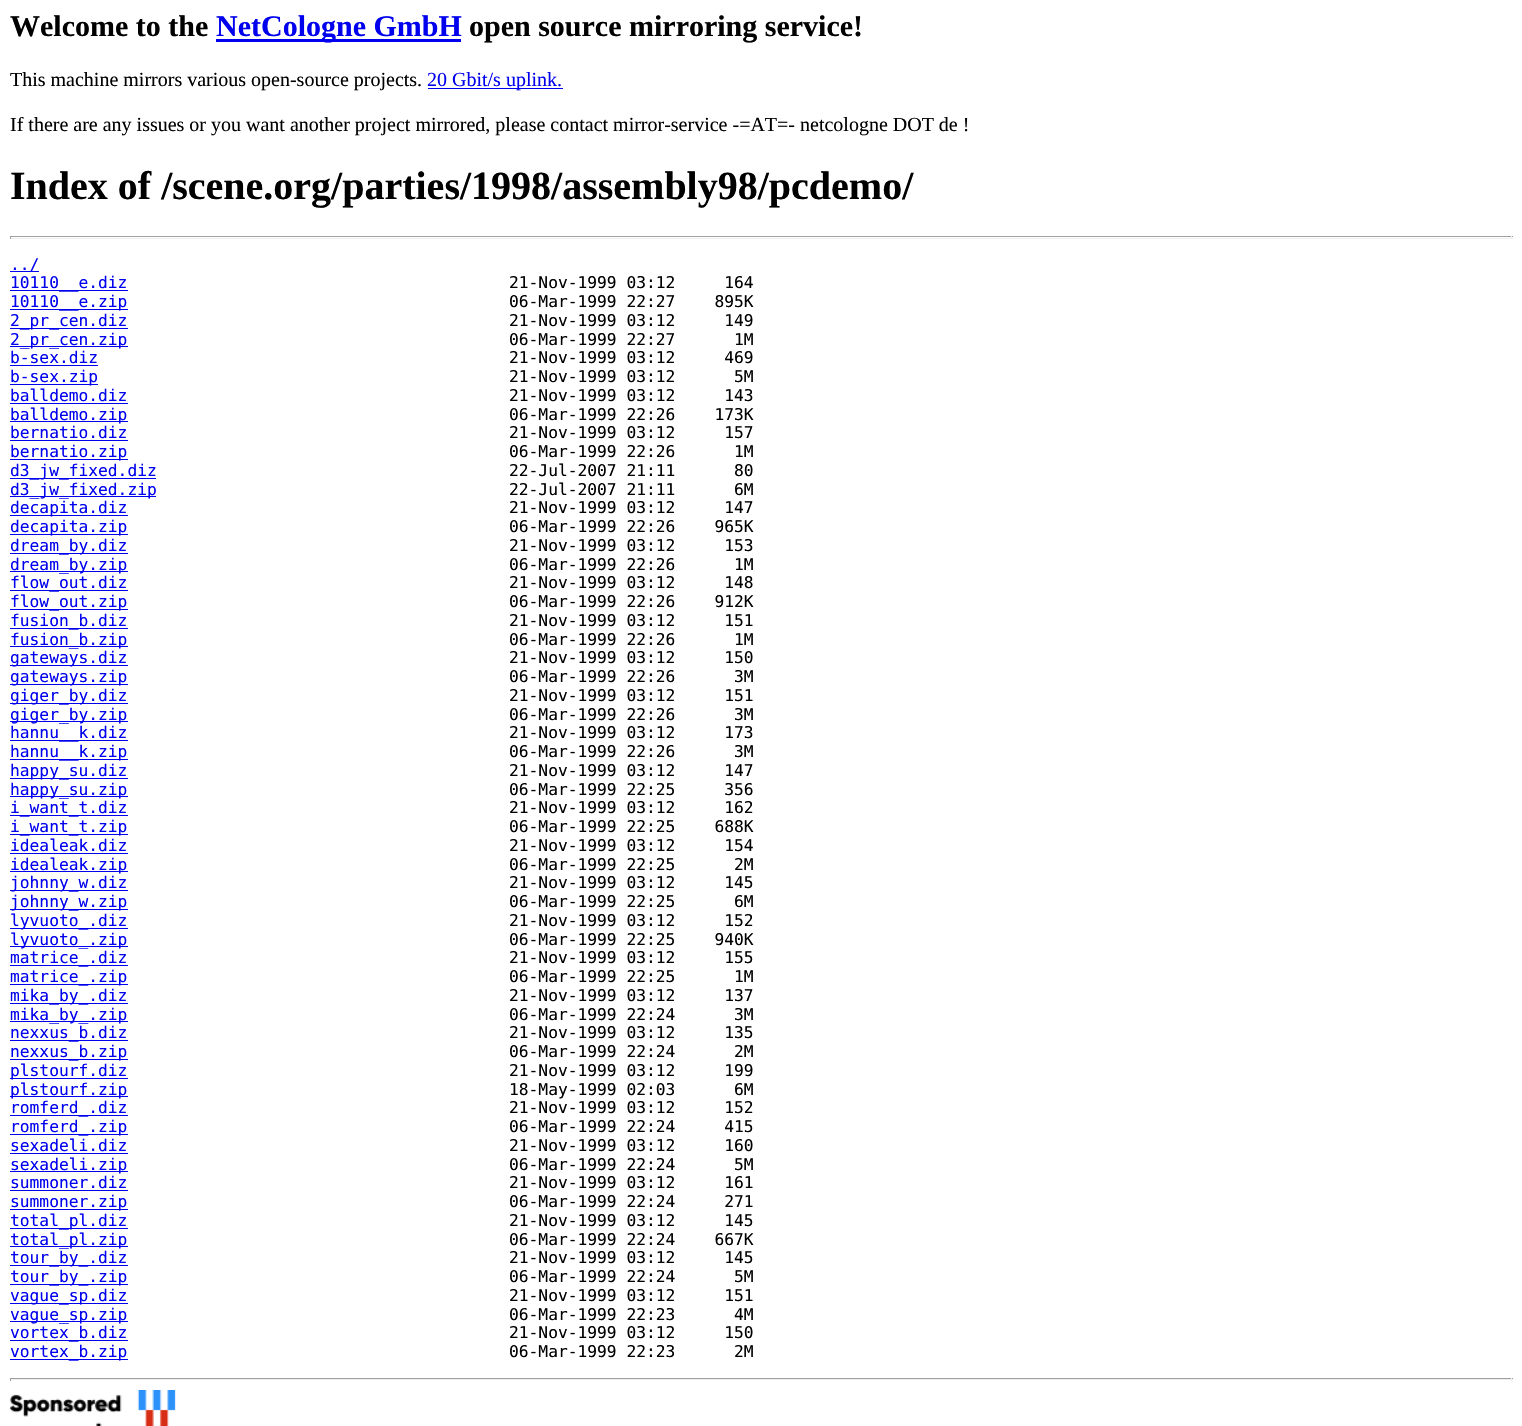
#include "include/core/SkBlurTypes.h"
#include "include/core/SkCanvas.h"
#include "include/core/SkData.h"
#include "include/core/SkFont.h"
#include "include/core/SkFontMgr.h"
#include "include/core/SkImage.h"
#include "include/core/SkMaskFilter.h"
#include "include/core/SkPaint.h"
#include "include/core/SkPathBuilder.h"
#include "include/core/SkTextBlob.h"
#include "include/effects/SkDashPathEffect.h"
#include "include/effects/SkGradientShader.h"
#include "include/utils/SkParsePath.h"

extern sk_sp<SkFontMgr> fontMgr;

static SkFont font(const char* family, int weight, float size, bool italic = false) {
    SkFontStyle style(weight, SkFontStyle::kNormal_Width,
        italic ? SkFontStyle::kItalic_Slant : SkFontStyle::kUpright_Slant);
    SkFont result(fontMgr->matchFamilyStyle(family, style), size);
    result.setSubpixel(true);
    return result;
}

static void drawLabel(SkCanvas* canvas, const char* s, float x, float y, const SkFont& font, SkColor color) {
    SkPaint ink(SkColor4f::FromColor(color));
    ink.setAntiAlias(true);
    canvas->drawString(s, x, y, font, ink);
}

static void fillRect(SkCanvas* canvas, float x, float y, float w, float h, SkColor color) {
    SkPaint ink(SkColor4f::FromColor(color));
    ink.setAntiAlias(true);
    canvas->drawRect(SkRect::MakeXYWH(x, y, w, h), ink);
}

static void drawPhoto(SkCanvas* canvas, const char* path, float x, float y, float w, float h) {
    auto image = SkImages::DeferredFromEncodedData(SkData::MakeFromFileName(path));
    canvas->drawImageRect(image, SkRect::MakeXYWH(x, y, w, h), SkSamplingOptions());
}

void draw(SkCanvas* canvas) {
    SkPaint paint;
    paint.setAntiAlias(true);
    canvas->clear(0xFFFFFFFF);
    SkFont font1 = font("Liberation Serif", 700, 30);
    drawLabel(canvas, "Welcome to the", 10, 36, font1, 0xFF000000);
    fillRect(canvas, 216, 39, 245, 3, 0xFF0000EE);
    drawLabel(canvas, "NetCologne GmbH", 216, 36, font1, 0xFF0000EE);
    drawLabel(canvas, "open source mirroring service!", 469, 36, font1, 0xFF000000);
    SkFont font2 = font("Liberation Serif", 400, 20);
    drawLabel(canvas, "This machine mirrors various open-source projects.", 10, 86, font2, 0xFF000000);
    fillRect(canvas, 428, 88, 135, 1, 0xFF0000EE);
    drawLabel(canvas, "20 Gbit/s uplink.", 427, 86, font2, 0xFF0000EE);
    drawLabel(canvas, "If there are any issues or you want another project mirrored, please contact mirror-service -=AT=- netcologne DOT de !", 10, 131, font2, 0xFF000000);
    SkFont font3 = font("Liberation Serif", 700, 40);
    drawLabel(canvas, "Index of /scene.org/parties/1998/assembly98/pcdemo/", 10, 199, font3, 0xFF000000);
    fillRect(canvas, 10, 236, 1503, 1, 0xFF9F9F9F);
    fillRect(canvas, 1511, 236, 1, 3, 0xFFEEEEEE);
    fillRect(canvas, 10, 238, 1503, 1, 0xFFEEEEEE);
    fillRect(canvas, 10, 236, 1, 3, 0xFF9F9F9F);
    fillRect(canvas, 10, 271, 29, 1, 0xFF0000EE);
    SkFont font4 = font("DejaVu Sans Mono", 400, 16.25f);
    drawLabel(canvas, "../", 10, 270, font4, 0xFF0000EE);
    fillRect(canvas, 10, 290, 118, 1, 0xFF0000EE);
    drawLabel(canvas, "10110__e.diz", 10, 288, font4, 0xFF0000EE);
    drawLabel(canvas, "21-Nov-1999 03:12     164", 509, 288, font4, 0xFF000000);
    fillRect(canvas, 10, 309, 118, 1, 0xFF0000EE);
    drawLabel(canvas, "10110__e.zip", 10, 307, font4, 0xFF0000EE);
    drawLabel(canvas, "06-Mar-1999 22:27    895K", 509, 307, font4, 0xFF000000);
    fillRect(canvas, 10, 328, 118, 1, 0xFF0000EE);
    drawLabel(canvas, "2_pr_cen.diz", 10, 326, font4, 0xFF0000EE);
    drawLabel(canvas, "21-Nov-1999 03:12     149", 509, 326, font4, 0xFF000000);
    fillRect(canvas, 10, 346, 118, 1, 0xFF0000EE);
    drawLabel(canvas, "2_pr_cen.zip", 10, 345, font4, 0xFF0000EE);
    drawLabel(canvas, "06-Mar-1999 22:27      1M", 509, 345, font4, 0xFF000000);
    drawLabel(canvas, "b-sex.diz", 10, 363, font4, 0xFF0000EE);
    fillRect(canvas, 10, 365, 88, 1, 0xFF0000EE);
    drawLabel(canvas, "21-Nov-1999 03:12     469", 509, 363, font4, 0xFF000000);
    fillRect(canvas, 10, 384, 88, 1, 0xFF0000EE);
    drawLabel(canvas, "b-sex.zip", 10, 382, font4, 0xFF0000EE);
    drawLabel(canvas, "21-Nov-1999 03:12      5M", 509, 382, font4, 0xFF000000);
    drawLabel(canvas, "balldemo.diz", 10, 401, font4, 0xFF0000EE);
    fillRect(canvas, 10, 403, 118, 1, 0xFF0000EE);
    drawLabel(canvas, "21-Nov-1999 03:12     143", 509, 401, font4, 0xFF000000);
    fillRect(canvas, 10, 421, 118, 1, 0xFF0000EE);
    drawLabel(canvas, "balldemo.zip", 10, 420, font4, 0xFF0000EE);
    drawLabel(canvas, "06-Mar-1999 22:26    173K", 509, 420, font4, 0xFF000000);
    drawLabel(canvas, "bernatio.diz", 10, 438, font4, 0xFF0000EE);
    fillRect(canvas, 10, 440, 118, 1, 0xFF0000EE);
    drawLabel(canvas, "21-Nov-1999 03:12     157", 509, 438, font4, 0xFF000000);
    fillRect(canvas, 10, 459, 118, 1, 0xFF0000EE);
    drawLabel(canvas, "bernatio.zip", 10, 457, font4, 0xFF0000EE);
    drawLabel(canvas, "06-Mar-1999 22:26      1M", 509, 457, font4, 0xFF000000);
    fillRect(canvas, 10, 478, 146, 1, 0xFF0000EE);
    drawLabel(canvas, "d3_jw_fixed.diz", 10, 476, font4, 0xFF0000EE);
    drawLabel(canvas, "22-Jul-2007 21:11      80", 509, 476, font4, 0xFF000000);
    fillRect(canvas, 10, 496, 146, 1, 0xFF0000EE);
    drawLabel(canvas, "d3_jw_fixed.zip", 10, 495, font4, 0xFF0000EE);
    drawLabel(canvas, "22-Jul-2007 21:11      6M", 509, 495, font4, 0xFF000000);
    fillRect(canvas, 10, 515, 118, 1, 0xFF0000EE);
    drawLabel(canvas, "decapita.diz", 10, 513, font4, 0xFF0000EE);
    drawLabel(canvas, "21-Nov-1999 03:12     147", 509, 513, font4, 0xFF000000);
    fillRect(canvas, 10, 534, 118, 1, 0xFF0000EE);
    drawLabel(canvas, "decapita.zip", 10, 532, font4, 0xFF0000EE);
    drawLabel(canvas, "06-Mar-1999 22:26    965K", 509, 532, font4, 0xFF000000);
    fillRect(canvas, 10, 553, 118, 1, 0xFF0000EE);
    drawLabel(canvas, "dream_by.diz", 10, 551, font4, 0xFF0000EE);
    drawLabel(canvas, "21-Nov-1999 03:12     153", 509, 551, font4, 0xFF000000);
    fillRect(canvas, 10, 571, 118, 1, 0xFF0000EE);
    drawLabel(canvas, "dream_by.zip", 10, 570, font4, 0xFF0000EE);
    drawLabel(canvas, "06-Mar-1999 22:26      1M", 509, 570, font4, 0xFF000000);
    fillRect(canvas, 10, 590, 118, 1, 0xFF0000EE);
    drawLabel(canvas, "flow_out.diz", 10, 588, font4, 0xFF0000EE);
    drawLabel(canvas, "21-Nov-1999 03:12     148", 509, 588, font4, 0xFF000000);
    fillRect(canvas, 10, 609, 118, 1, 0xFF0000EE);
    drawLabel(canvas, "flow_out.zip", 10, 607, font4, 0xFF0000EE);
    drawLabel(canvas, "06-Mar-1999 22:26    912K", 509, 607, font4, 0xFF000000);
    fillRect(canvas, 10, 628, 118, 1, 0xFF0000EE);
    drawLabel(canvas, "fusion_b.diz", 10, 626, font4, 0xFF0000EE);
    drawLabel(canvas, "21-Nov-1999 03:12     151", 509, 626, font4, 0xFF000000);
    fillRect(canvas, 10, 646, 118, 1, 0xFF0000EE);
    drawLabel(canvas, "fusion_b.zip", 10, 645, font4, 0xFF0000EE);
    drawLabel(canvas, "06-Mar-1999 22:26      1M", 509, 645, font4, 0xFF000000);
    fillRect(canvas, 10, 665, 118, 1, 0xFF0000EE);
    drawLabel(canvas, "gateways.diz", 10, 663, font4, 0xFF0000EE);
    drawLabel(canvas, "21-Nov-1999 03:12     150", 509, 663, font4, 0xFF000000);
    fillRect(canvas, 10, 684, 118, 1, 0xFF0000EE);
    drawLabel(canvas, "gateways.zip", 10, 682, font4, 0xFF0000EE);
    drawLabel(canvas, "06-Mar-1999 22:26      3M", 509, 682, font4, 0xFF000000);
    fillRect(canvas, 10, 703, 118, 1, 0xFF0000EE);
    drawLabel(canvas, "giger_by.diz", 10, 701, font4, 0xFF0000EE);
    drawLabel(canvas, "21-Nov-1999 03:12     151", 509, 701, font4, 0xFF000000);
    fillRect(canvas, 10, 721, 118, 1, 0xFF0000EE);
    drawLabel(canvas, "giger_by.zip", 10, 720, font4, 0xFF0000EE);
    drawLabel(canvas, "06-Mar-1999 22:26      3M", 509, 720, font4, 0xFF000000);
    fillRect(canvas, 10, 740, 118, 1, 0xFF0000EE);
    drawLabel(canvas, "hannu__k.diz", 10, 738, font4, 0xFF0000EE);
    drawLabel(canvas, "21-Nov-1999 03:12     173", 509, 738, font4, 0xFF000000);
    fillRect(canvas, 10, 759, 118, 1, 0xFF0000EE);
    drawLabel(canvas, "hannu__k.zip", 10, 757, font4, 0xFF0000EE);
    drawLabel(canvas, "06-Mar-1999 22:26      3M", 509, 757, font4, 0xFF000000);
    fillRect(canvas, 10, 778, 118, 1, 0xFF0000EE);
    drawLabel(canvas, "happy_su.diz", 10, 776, font4, 0xFF0000EE);
    drawLabel(canvas, "21-Nov-1999 03:12     147", 509, 776, font4, 0xFF000000);
    fillRect(canvas, 10, 796, 118, 1, 0xFF0000EE);
    drawLabel(canvas, "happy_su.zip", 10, 795, font4, 0xFF0000EE);
    drawLabel(canvas, "06-Mar-1999 22:25     356", 509, 795, font4, 0xFF000000);
    fillRect(canvas, 10, 815, 118, 1, 0xFF0000EE);
    drawLabel(canvas, "i_want_t.diz", 10, 813, font4, 0xFF0000EE);
    drawLabel(canvas, "21-Nov-1999 03:12     162", 509, 813, font4, 0xFF000000);
    fillRect(canvas, 10, 834, 118, 1, 0xFF0000EE);
    drawLabel(canvas, "i_want_t.zip", 10, 832, font4, 0xFF0000EE);
    drawLabel(canvas, "06-Mar-1999 22:25    688K", 509, 832, font4, 0xFF000000);
    drawLabel(canvas, "idealeak.diz", 10, 851, font4, 0xFF0000EE);
    fillRect(canvas, 10, 853, 118, 1, 0xFF0000EE);
    drawLabel(canvas, "21-Nov-1999 03:12     154", 509, 851, font4, 0xFF000000);
    fillRect(canvas, 10, 871, 118, 1, 0xFF0000EE);
    drawLabel(canvas, "idealeak.zip", 10, 870, font4, 0xFF0000EE);
    drawLabel(canvas, "06-Mar-1999 22:25      2M", 509, 870, font4, 0xFF000000);
    fillRect(canvas, 10, 890, 118, 1, 0xFF0000EE);
    drawLabel(canvas, "johnny_w.diz", 10, 888, font4, 0xFF0000EE);
    drawLabel(canvas, "21-Nov-1999 03:12     145", 509, 888, font4, 0xFF000000);
    fillRect(canvas, 10, 909, 118, 1, 0xFF0000EE);
    drawLabel(canvas, "johnny_w.zip", 10, 907, font4, 0xFF0000EE);
    drawLabel(canvas, "06-Mar-1999 22:25      6M", 509, 907, font4, 0xFF000000);
    fillRect(canvas, 10, 928, 118, 1, 0xFF0000EE);
    drawLabel(canvas, "lyvuoto_.diz", 10, 926, font4, 0xFF0000EE);
    drawLabel(canvas, "21-Nov-1999 03:12     152", 509, 926, font4, 0xFF000000);
    fillRect(canvas, 10, 946, 118, 1, 0xFF0000EE);
    drawLabel(canvas, "lyvuoto_.zip", 10, 945, font4, 0xFF0000EE);
    drawLabel(canvas, "06-Mar-1999 22:25    940K", 509, 945, font4, 0xFF000000);
    fillRect(canvas, 10, 965, 118, 1, 0xFF0000EE);
    drawLabel(canvas, "matrice_.diz", 10, 963, font4, 0xFF0000EE);
    drawLabel(canvas, "21-Nov-1999 03:12     155", 509, 963, font4, 0xFF000000);
    fillRect(canvas, 10, 984, 118, 1, 0xFF0000EE);
    drawLabel(canvas, "matrice_.zip", 10, 982, font4, 0xFF0000EE);
    drawLabel(canvas, "06-Mar-1999 22:25      1M", 509, 982, font4, 0xFF000000);
    fillRect(canvas, 10, 1003, 118, 1, 0xFF0000EE);
    drawLabel(canvas, "mika_by_.diz", 10, 1001, font4, 0xFF0000EE);
    drawLabel(canvas, "21-Nov-1999 03:12     137", 509, 1001, font4, 0xFF000000);
    fillRect(canvas, 10, 1021, 118, 1, 0xFF0000EE);
    drawLabel(canvas, "mika_by_.zip", 10, 1020, font4, 0xFF0000EE);
    drawLabel(canvas, "06-Mar-1999 22:24      3M", 509, 1020, font4, 0xFF000000);
    fillRect(canvas, 10, 1040, 118, 1, 0xFF0000EE);
    drawLabel(canvas, "nexxus_b.diz", 10, 1038, font4, 0xFF0000EE);
    drawLabel(canvas, "21-Nov-1999 03:12     135", 509, 1038, font4, 0xFF000000);
    fillRect(canvas, 10, 1059, 118, 1, 0xFF0000EE);
    drawLabel(canvas, "nexxus_b.zip", 10, 1057, font4, 0xFF0000EE);
    drawLabel(canvas, "06-Mar-1999 22:24      2M", 509, 1057, font4, 0xFF000000);
    fillRect(canvas, 10, 1078, 118, 1, 0xFF0000EE);
    drawLabel(canvas, "plstourf.diz", 10, 1076, font4, 0xFF0000EE);
    drawLabel(canvas, "21-Nov-1999 03:12     199", 509, 1076, font4, 0xFF000000);
    fillRect(canvas, 10, 1096, 118, 1, 0xFF0000EE);
    drawLabel(canvas, "plstourf.zip", 10, 1095, font4, 0xFF0000EE);
    drawLabel(canvas, "18-May-1999 02:03      6M", 509, 1095, font4, 0xFF000000);
    fillRect(canvas, 10, 1115, 118, 1, 0xFF0000EE);
    drawLabel(canvas, "romferd_.diz", 10, 1113, font4, 0xFF0000EE);
    drawLabel(canvas, "21-Nov-1999 03:12     152", 509, 1113, font4, 0xFF000000);
    fillRect(canvas, 10, 1134, 118, 1, 0xFF0000EE);
    drawLabel(canvas, "romferd_.zip", 10, 1132, font4, 0xFF0000EE);
    drawLabel(canvas, "06-Mar-1999 22:24     415", 509, 1132, font4, 0xFF000000);
    drawLabel(canvas, "sexadeli.diz", 10, 1151, font4, 0xFF0000EE);
    fillRect(canvas, 10, 1153, 118, 1, 0xFF0000EE);
    drawLabel(canvas, "21-Nov-1999 03:12     160", 509, 1151, font4, 0xFF000000);
    fillRect(canvas, 10, 1171, 118, 1, 0xFF0000EE);
    drawLabel(canvas, "sexadeli.zip", 10, 1170, font4, 0xFF0000EE);
    drawLabel(canvas, "06-Mar-1999 22:24      5M", 509, 1170, font4, 0xFF000000);
    drawLabel(canvas, "summoner.diz", 10, 1188, font4, 0xFF0000EE);
    fillRect(canvas, 10, 1190, 118, 1, 0xFF0000EE);
    drawLabel(canvas, "21-Nov-1999 03:12     161", 509, 1188, font4, 0xFF000000);
    fillRect(canvas, 10, 1209, 118, 1, 0xFF0000EE);
    drawLabel(canvas, "summoner.zip", 10, 1207, font4, 0xFF0000EE);
    drawLabel(canvas, "06-Mar-1999 22:24     271", 509, 1207, font4, 0xFF000000);
    fillRect(canvas, 10, 1228, 118, 1, 0xFF0000EE);
    drawLabel(canvas, "total_pl.diz", 10, 1226, font4, 0xFF0000EE);
    drawLabel(canvas, "21-Nov-1999 03:12     145", 509, 1226, font4, 0xFF000000);
    fillRect(canvas, 10, 1246, 118, 1, 0xFF0000EE);
    drawLabel(canvas, "total_pl.zip", 10, 1245, font4, 0xFF0000EE);
    drawLabel(canvas, "06-Mar-1999 22:24    667K", 509, 1245, font4, 0xFF000000);
    fillRect(canvas, 10, 1265, 118, 1, 0xFF0000EE);
    drawLabel(canvas, "tour_by_.diz", 10, 1263, font4, 0xFF0000EE);
    drawLabel(canvas, "21-Nov-1999 03:12     145", 509, 1263, font4, 0xFF000000);
    fillRect(canvas, 10, 1284, 118, 1, 0xFF0000EE);
    drawLabel(canvas, "tour_by_.zip", 10, 1282, font4, 0xFF0000EE);
    drawLabel(canvas, "06-Mar-1999 22:24      5M", 509, 1282, font4, 0xFF000000);
    fillRect(canvas, 10, 1303, 118, 1, 0xFF0000EE);
    drawLabel(canvas, "vague_sp.diz", 10, 1301, font4, 0xFF0000EE);
    drawLabel(canvas, "21-Nov-1999 03:12     151", 509, 1301, font4, 0xFF000000);
    fillRect(canvas, 10, 1321, 118, 1, 0xFF0000EE);
    drawLabel(canvas, "vague_sp.zip", 10, 1320, font4, 0xFF0000EE);
    drawLabel(canvas, "06-Mar-1999 22:23      4M", 509, 1320, font4, 0xFF000000);
    fillRect(canvas, 10, 1340, 118, 1, 0xFF0000EE);
    drawLabel(canvas, "vortex_b.diz", 10, 1338, font4, 0xFF0000EE);
    drawLabel(canvas, "21-Nov-1999 03:12     150", 509, 1338, font4, 0xFF000000);
    fillRect(canvas, 10, 1359, 118, 1, 0xFF0000EE);
    drawLabel(canvas, "vortex_b.zip", 10, 1357, font4, 0xFF0000EE);
    drawLabel(canvas, "06-Mar-1999 22:23      2M", 509, 1357, font4, 0xFF000000);
    fillRect(canvas, 10, 1378, 1503, 1, 0xFF9F9F9F);
    fillRect(canvas, 1511, 1378, 1, 3, 0xFFEEEEEE);
    fillRect(canvas, 10, 1379, 1503, 1, 0xFFEEEEEE);
    fillRect(canvas, 10, 1378, 1, 3, 0xFF9F9F9F);
    drawPhoto(canvas, "assets/img1.png", 10, 1390, 166, 36);
}
